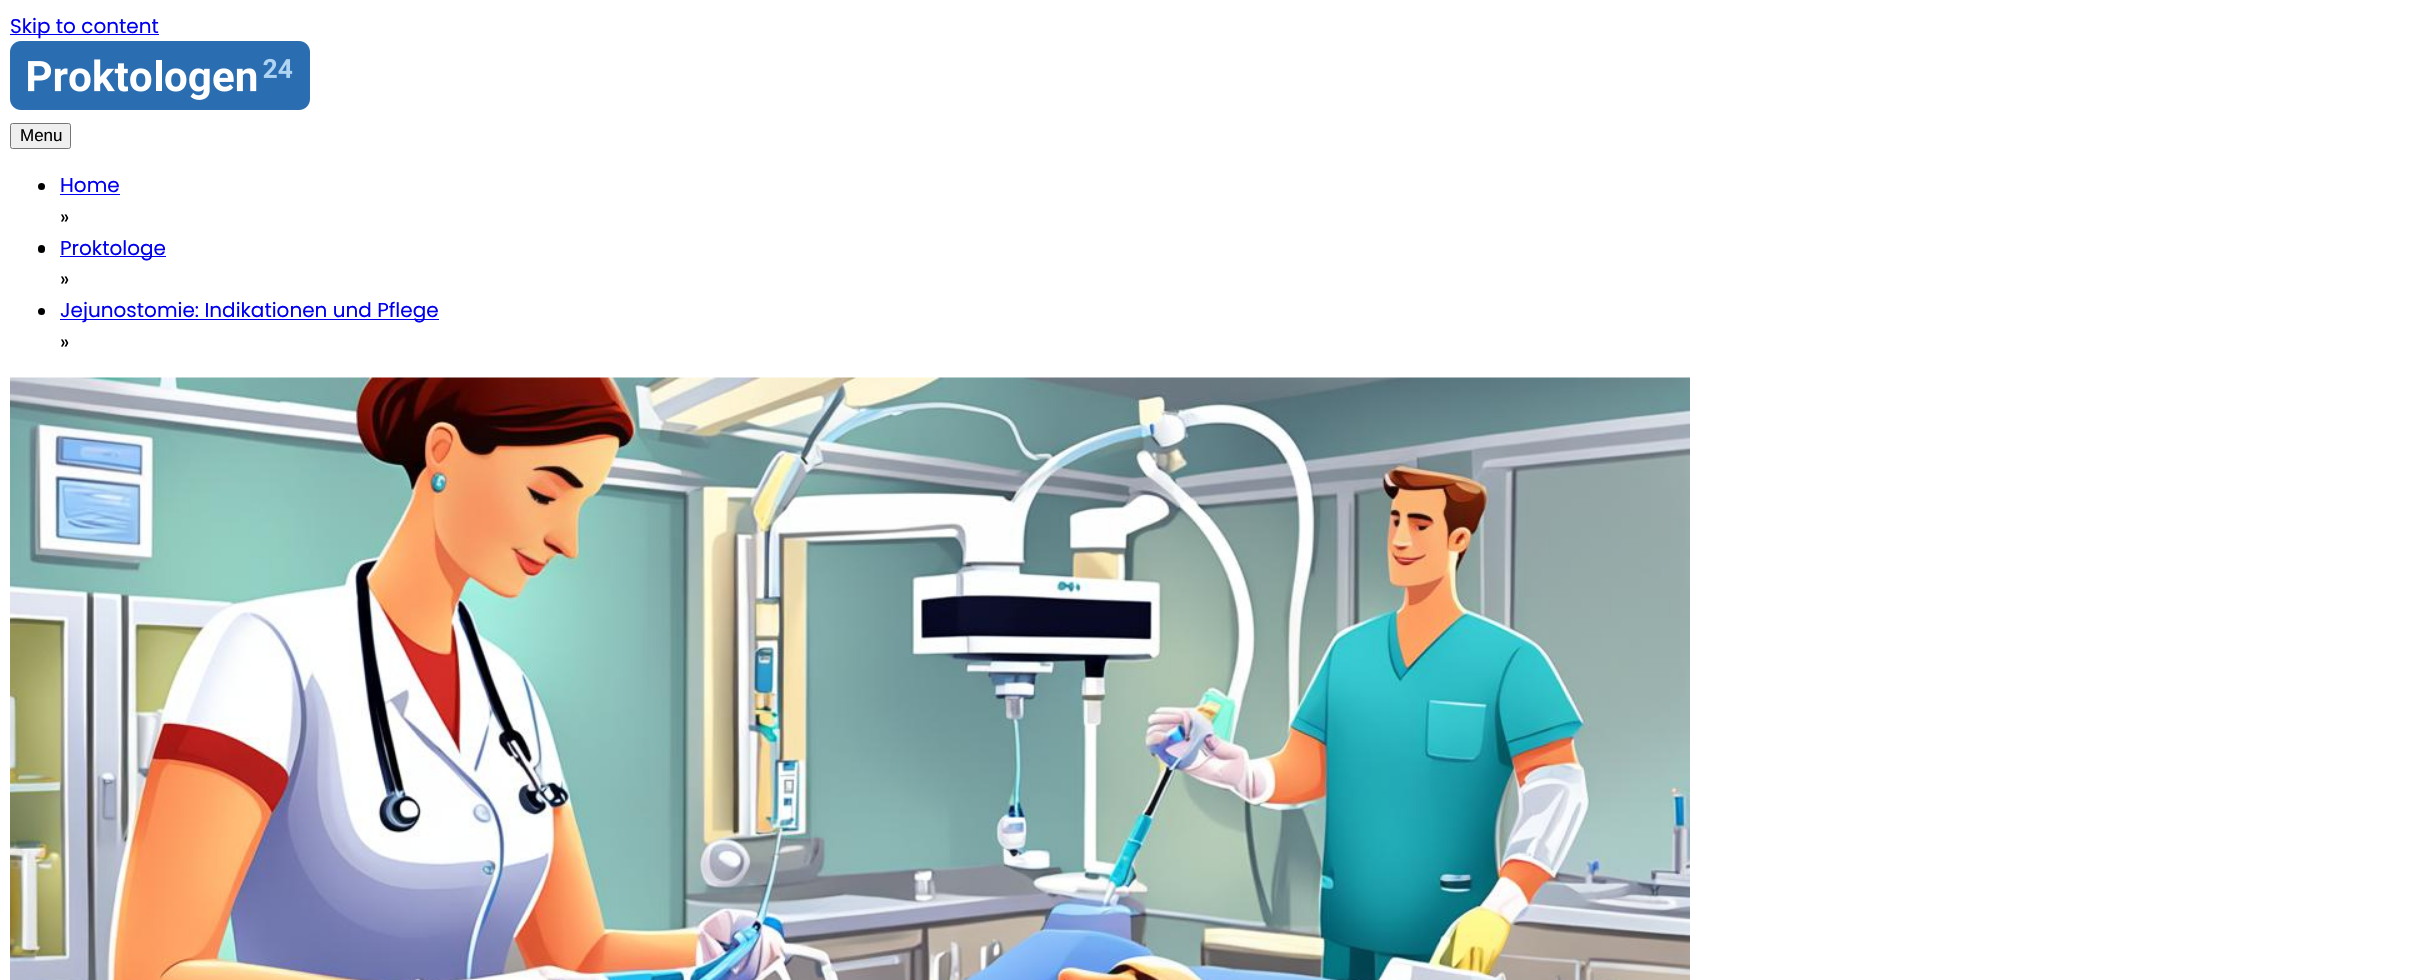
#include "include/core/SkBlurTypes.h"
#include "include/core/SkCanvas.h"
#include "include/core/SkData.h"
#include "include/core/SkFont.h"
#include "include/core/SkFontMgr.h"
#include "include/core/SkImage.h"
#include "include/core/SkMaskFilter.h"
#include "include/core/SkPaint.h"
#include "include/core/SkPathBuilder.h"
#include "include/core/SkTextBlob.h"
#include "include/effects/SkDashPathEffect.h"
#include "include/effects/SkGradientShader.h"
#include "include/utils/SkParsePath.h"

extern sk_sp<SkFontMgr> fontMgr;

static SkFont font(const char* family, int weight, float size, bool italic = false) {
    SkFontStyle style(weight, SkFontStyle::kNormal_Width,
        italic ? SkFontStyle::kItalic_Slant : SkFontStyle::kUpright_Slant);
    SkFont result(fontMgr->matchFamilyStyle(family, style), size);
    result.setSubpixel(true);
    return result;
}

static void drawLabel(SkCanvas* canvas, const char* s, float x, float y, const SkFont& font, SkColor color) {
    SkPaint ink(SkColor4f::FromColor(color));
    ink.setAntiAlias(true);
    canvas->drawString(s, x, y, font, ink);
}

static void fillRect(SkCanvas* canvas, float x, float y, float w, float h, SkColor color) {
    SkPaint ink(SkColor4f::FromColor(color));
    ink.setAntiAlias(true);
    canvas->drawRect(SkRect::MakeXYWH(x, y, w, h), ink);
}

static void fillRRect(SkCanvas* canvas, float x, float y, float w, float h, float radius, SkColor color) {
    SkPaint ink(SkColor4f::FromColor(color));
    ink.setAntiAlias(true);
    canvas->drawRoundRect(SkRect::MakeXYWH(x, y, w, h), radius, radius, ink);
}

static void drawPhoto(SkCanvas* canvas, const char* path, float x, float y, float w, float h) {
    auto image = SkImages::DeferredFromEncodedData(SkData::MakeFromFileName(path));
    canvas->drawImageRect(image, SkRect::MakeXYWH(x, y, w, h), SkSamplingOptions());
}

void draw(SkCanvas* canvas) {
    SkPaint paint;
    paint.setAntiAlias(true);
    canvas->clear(0xFFFFFFFF);
    fillRect(canvas, 10, 34, 149, 1, 0xFF0000EE);
    SkFont font1 = font("Poppins", 400, 20);
    drawLabel(canvas, "Skip to content", 10, 33, font1, 0xFF0000EE);
    drawPhoto(canvas, "assets/img1.png", 10, 41, 300, 69);
    paint.setColor(0xFFEFEFEF);
    canvas->drawRoundRect(SkRect::MakeXYWH(10.5f, 123.5f, 60, 25), 2, 2, paint);
    paint.setStroke(true);
    paint.setStrokeWidth(1);
    paint.setColor(0xFF767676);
    canvas->drawRoundRect(SkRect::MakeXYWH(10.5f, 123.5f, 60, 25), 2, 2, paint);
    SkFont font2 = font("Liberation Sans", 400, 17);
    drawLabel(canvas, "Menu", 20, 141, font2, 0xFF000000);
    paint.setStroke(false);
    paint.setColor(0xFF000000);
    canvas->drawCircle(41.5f, 186.5f, 3.5f, paint);
    drawLabel(canvas, "Home", 60, 192, font1, 0xFF0000EE);
    fillRect(canvas, 60, 194, 60, 1, 0xFF0000EE);
    drawLabel(canvas, "»", 60, 224, font1, 0xFF000000);
    fillRRect(canvas, 38, 245, 7, 8, 3.5f, 0xFF000000);
    fillRect(canvas, 60, 256, 106, 1, 0xFF0000EE);
    drawLabel(canvas, "Proktologe", 60, 255, font1, 0xFF0000EE);
    drawLabel(canvas, "»", 60, 286, font1, 0xFF000000);
    canvas->drawCircle(41.5f, 311.5f, 3.5f, paint);
    fillRect(canvas, 60, 319, 379, 1, 0xFF0000EE);
    drawLabel(canvas, "Jejunostomie: Indikationen und Pflege", 60, 317, font1, 0xFF0000EE);
    drawLabel(canvas, "»", 60, 349, font1, 0xFF000000);
    drawPhoto(canvas, "assets/img2.png", 10, 377, 1680, 603);
}
